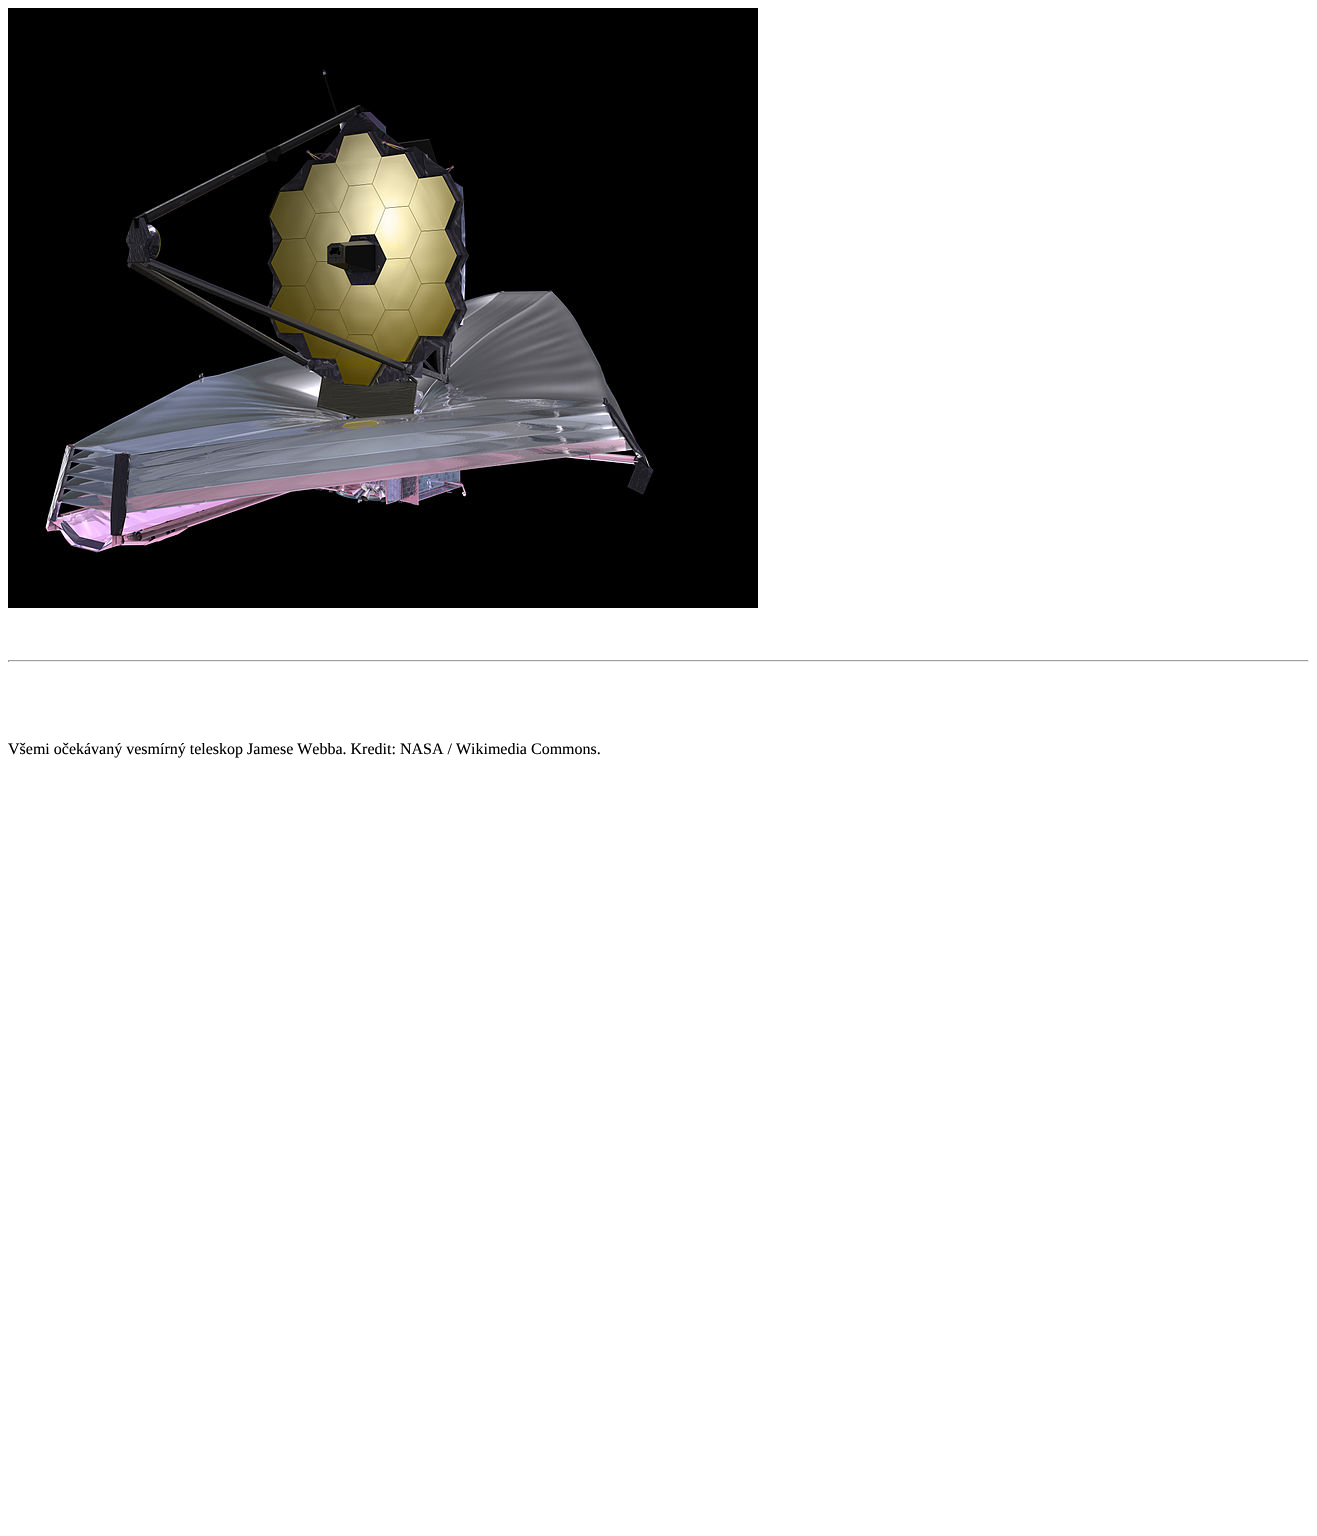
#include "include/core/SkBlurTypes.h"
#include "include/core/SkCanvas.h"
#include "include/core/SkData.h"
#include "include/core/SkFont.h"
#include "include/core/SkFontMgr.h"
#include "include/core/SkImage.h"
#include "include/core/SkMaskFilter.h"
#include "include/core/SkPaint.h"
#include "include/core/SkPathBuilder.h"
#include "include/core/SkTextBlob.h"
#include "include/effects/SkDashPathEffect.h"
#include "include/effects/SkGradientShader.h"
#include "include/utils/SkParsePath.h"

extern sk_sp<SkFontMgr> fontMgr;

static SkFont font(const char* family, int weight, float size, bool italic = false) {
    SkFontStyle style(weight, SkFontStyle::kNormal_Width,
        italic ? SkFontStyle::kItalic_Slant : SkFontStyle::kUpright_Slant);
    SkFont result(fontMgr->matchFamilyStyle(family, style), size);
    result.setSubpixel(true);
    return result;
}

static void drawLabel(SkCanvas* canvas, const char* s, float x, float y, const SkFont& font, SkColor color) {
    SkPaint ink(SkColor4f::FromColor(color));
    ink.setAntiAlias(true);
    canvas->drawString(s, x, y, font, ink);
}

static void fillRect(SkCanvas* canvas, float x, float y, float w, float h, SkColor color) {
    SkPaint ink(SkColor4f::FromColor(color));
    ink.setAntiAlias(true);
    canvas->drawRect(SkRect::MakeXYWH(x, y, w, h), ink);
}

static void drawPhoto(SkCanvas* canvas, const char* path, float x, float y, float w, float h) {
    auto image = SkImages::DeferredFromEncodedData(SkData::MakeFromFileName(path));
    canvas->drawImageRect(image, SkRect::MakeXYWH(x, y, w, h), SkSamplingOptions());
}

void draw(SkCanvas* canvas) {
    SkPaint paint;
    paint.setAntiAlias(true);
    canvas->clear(0xFFFFFFFF);
    drawPhoto(canvas, "assets/img1.png", 8, 8, 750, 600);
    fillRect(canvas, 8, 660, 1301, 1, 0xFF9F9F9F);
    fillRect(canvas, 1308, 660, 1, 2, 0xFFEEEEEE);
    fillRect(canvas, 8, 661, 1301, 1, 0xFFEEEEEE);
    fillRect(canvas, 8, 660, 1, 2, 0xFF9F9F9F);
    SkFont font1 = font("Liberation Serif", 400, 16);
    drawLabel(canvas, "Všemi očekávaný vesmírný teleskop Jamese Webba. Kredit: NASA / Wikimedia Commons.", 8, 754, font1, 0xFF000000);
}
